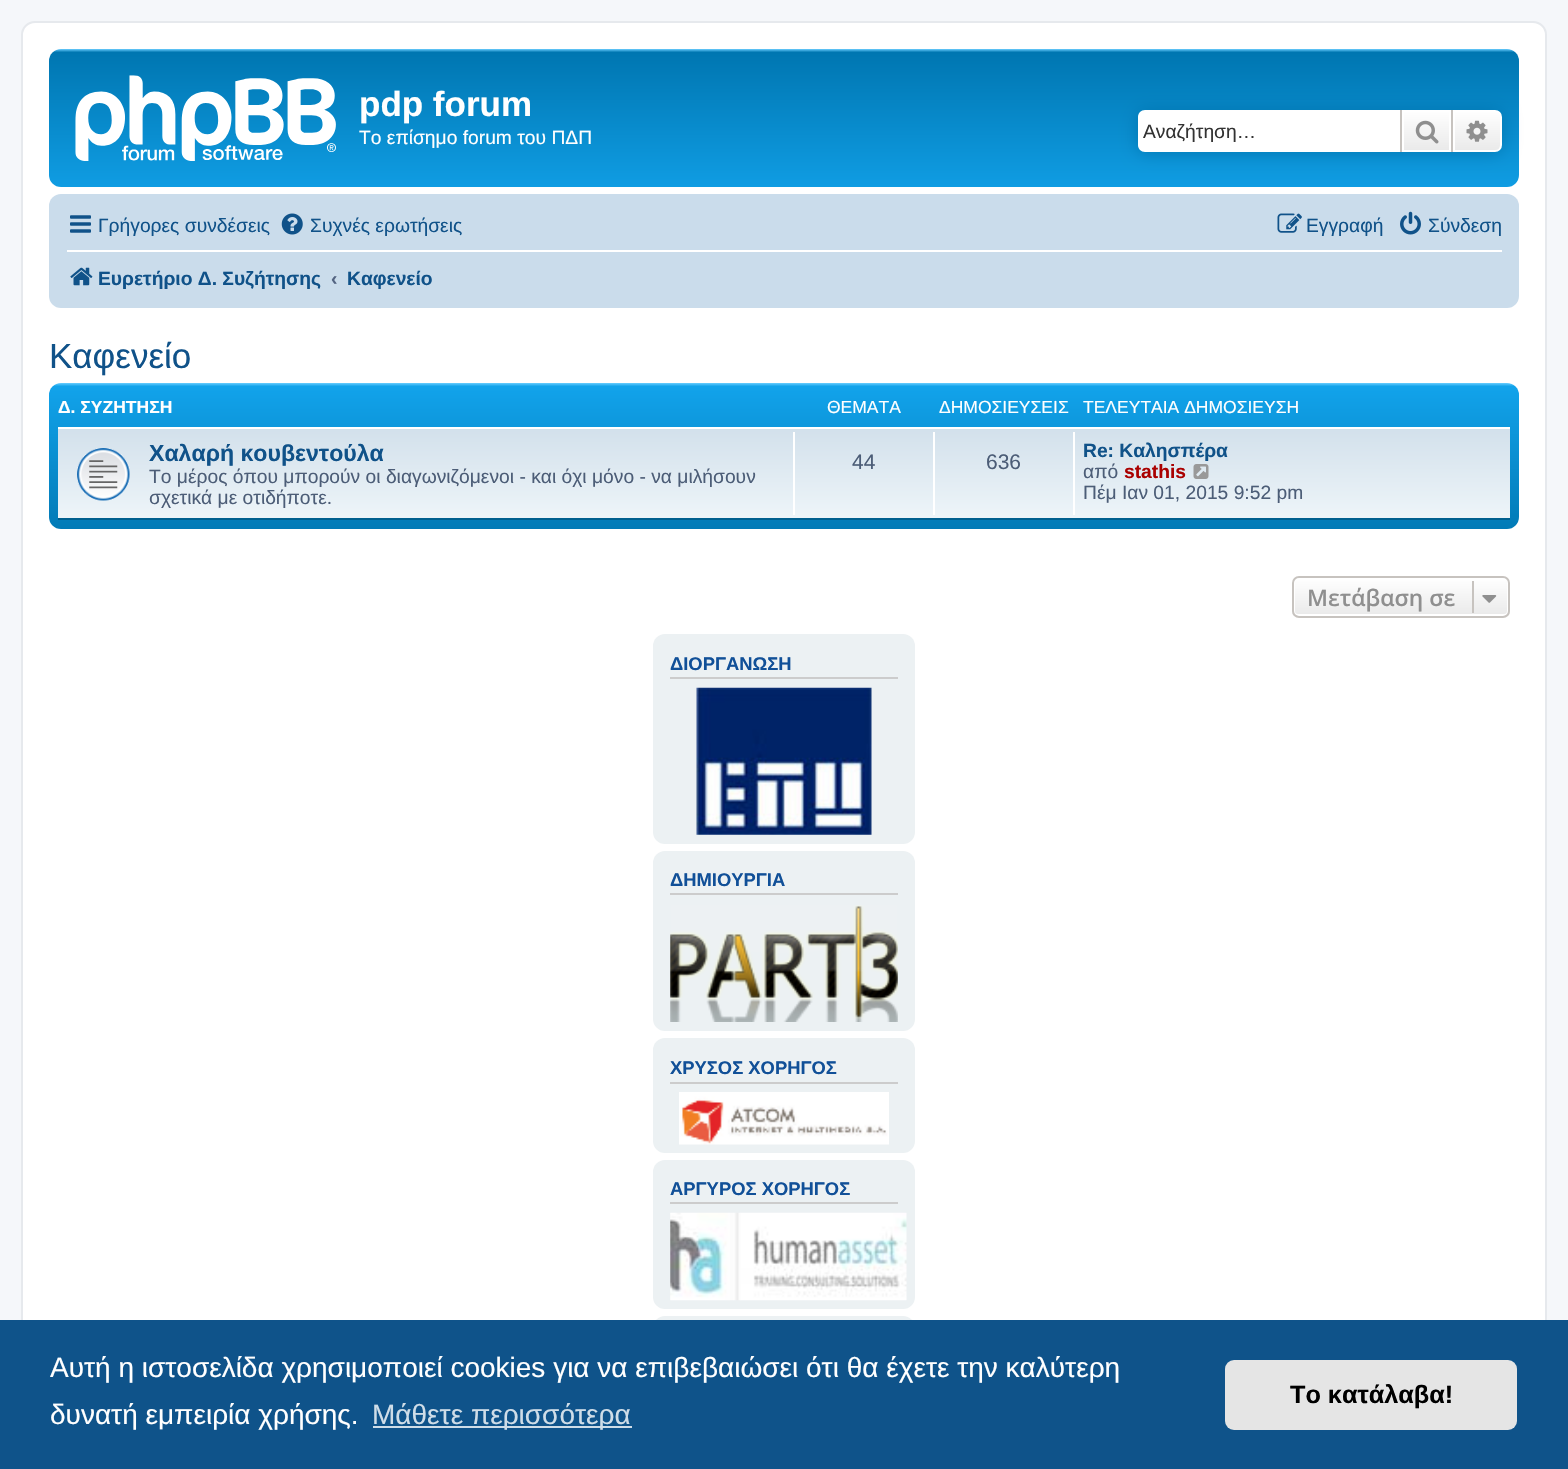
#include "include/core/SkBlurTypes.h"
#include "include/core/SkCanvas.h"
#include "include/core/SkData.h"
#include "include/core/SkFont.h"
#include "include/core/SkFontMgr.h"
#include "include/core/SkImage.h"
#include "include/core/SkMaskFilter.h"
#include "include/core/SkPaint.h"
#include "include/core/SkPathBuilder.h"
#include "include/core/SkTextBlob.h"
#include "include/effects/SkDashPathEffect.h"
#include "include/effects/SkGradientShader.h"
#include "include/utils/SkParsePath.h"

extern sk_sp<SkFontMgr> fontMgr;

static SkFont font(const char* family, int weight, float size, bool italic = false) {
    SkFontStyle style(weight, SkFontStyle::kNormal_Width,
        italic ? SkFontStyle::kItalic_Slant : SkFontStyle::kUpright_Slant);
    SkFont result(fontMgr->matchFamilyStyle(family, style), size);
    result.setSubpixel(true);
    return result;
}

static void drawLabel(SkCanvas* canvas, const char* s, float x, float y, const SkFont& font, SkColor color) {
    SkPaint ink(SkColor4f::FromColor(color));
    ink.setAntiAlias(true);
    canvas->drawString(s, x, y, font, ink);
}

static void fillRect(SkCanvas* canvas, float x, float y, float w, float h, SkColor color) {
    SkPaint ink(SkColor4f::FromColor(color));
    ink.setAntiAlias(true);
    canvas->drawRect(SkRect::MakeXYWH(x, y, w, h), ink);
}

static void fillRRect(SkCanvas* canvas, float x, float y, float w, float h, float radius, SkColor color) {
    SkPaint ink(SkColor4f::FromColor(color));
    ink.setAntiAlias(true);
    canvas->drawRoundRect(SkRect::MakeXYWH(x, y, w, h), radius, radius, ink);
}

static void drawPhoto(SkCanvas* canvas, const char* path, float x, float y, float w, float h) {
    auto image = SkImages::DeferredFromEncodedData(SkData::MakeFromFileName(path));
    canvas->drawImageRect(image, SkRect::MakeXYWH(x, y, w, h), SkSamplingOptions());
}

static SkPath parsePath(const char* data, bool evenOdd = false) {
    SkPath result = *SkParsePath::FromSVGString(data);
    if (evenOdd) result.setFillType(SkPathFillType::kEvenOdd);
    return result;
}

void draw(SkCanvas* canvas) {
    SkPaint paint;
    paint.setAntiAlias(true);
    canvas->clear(0xFFF5F7FA);
    paint.setColor(0xFFFFFFFF);
    canvas->drawRoundRect(SkRect::MakeXYWH(22, 22, 1524, 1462), 13, 13, paint);
    paint.setStroke(true);
    paint.setStrokeWidth(2);
    paint.setColor(0xFFE6E9ED);
    canvas->drawRoundRect(SkRect::MakeXYWH(22, 22, 1524, 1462), 13, 13, paint);
    paint.setStroke(false);
    {
        const SkColor colors[] = {0xFF6ACEFF, 0xFF0076B1, 0xFF12A3EB};
        const float stops[] = {0, 0.02f, 1};
        const SkPoint ends[] = {{784, 49}, {784, 210}};
        paint.setShader(SkGradientShader::MakeLinear(ends, colors, stops, 3, SkTileMode::kClamp));
        paint.setAlpha(255);
    }
    canvas->drawRoundRect(SkRect::MakeXYWH(49, 49, 1470, 138), 12, 12, paint);
    drawPhoto(canvas, "assets/img1.png", 75, 75, 261, 86);
    SkFont font1 = font("Liberation Sans", 700, 35);
    drawLabel(canvas, "pdp forum", 359, 116, font1, 0xFFFFFFFF);
    SkFont font2 = font("Liberation Sans", 400, 19.25f);
    drawLabel(canvas, "Το επίσημο forum του ΠΔΠ", 359, 144, font2, 0xFFFFFFFF);
    paint.setShader(nullptr);
    paint.setColor(0xFF0075B0);
    paint.setMaskFilter(SkMaskFilter::MakeBlur(kNormal_SkBlurStyle, 9));
    canvas->drawRoundRect(SkRect::MakeXYWH(1138, 110, 364, 42), 7, 7, paint);
    paint.setMaskFilter(nullptr);
    paint.setColor(0xFFFFFFFF);
    canvas->drawPath(parsePath("M1145 110H1400V152H1145C1141 152 1138 149 1138 145V117C1138 113 1141 110 1145 110Z"), paint);
    drawLabel(canvas, "Αναζήτηση…", 1143, 138, font2, 0xFF333333);
    {
        const SkColor colors[] = {0xFFFFFFFF, 0xFFE9E9E9};
        const float stops[] = {0, 1};
        const SkPoint ends[] = {{1426, 110}, {1426, 152}};
        paint.setShader(SkGradientShader::MakeLinear(ends, colors, stops, 2, SkTileMode::kClamp));
        paint.setAlpha(255);
    }
    canvas->drawRect(SkRect::MakeXYWH(1404, 112, 45, 38), paint);
    paint.setStroke(true);
    paint.setShader(nullptr);
    paint.setColor(0xFFFFFFFF);
    canvas->drawRect(SkRect::MakeXYWH(1403, 111, 47, 40), paint);
    fillRect(canvas, 1451, 110, 2, 42, 0xFFC7C3BF);
    fillRect(canvas, 1400, 110, 2, 42, 0xFFC7C3BF);
    drawPhoto(canvas, "assets/img2.png", 1415, 120, 24, 24);
    paint.setStroke(false);
    {
        const SkColor colors[] = {0xFFFFFFFF, 0xFFE9E9E9};
        const float stops[] = {0, 1};
        const SkPoint ends[] = {{1477, 110}, {1477, 152}};
        paint.setShader(SkGradientShader::MakeLinear(ends, colors, stops, 2, SkTileMode::kClamp));
        paint.setAlpha(255);
    }
    canvas->drawPath(parsePath("M1454 111H1495C1498.5 111 1501 113.5 1501 117V145C1501 148.5 1498.5 151 1495 151H1454Z"), paint);
    paint.setStroke(true);
    paint.setShader(nullptr);
    paint.setColor(0xFFFFFFFF);
    canvas->drawPath(parsePath("M1454 111H1495C1498.5 111 1501 113.5 1501 117V145C1501 148.5 1498.5 151 1495 151H1454Z"), paint);
    drawPhoto(canvas, "assets/img3.png", 1466, 120, 22, 22);
    fillRRect(canvas, 49, 194, 1470, 114, 12, 0xFFCADCEB);
    drawPhoto(canvas, "assets/img4.png", 70, 215, 21, 18);
    drawLabel(canvas, "Γρήγορες συνδέσεις", 98, 232, font2, 0xFF105289);
    drawPhoto(canvas, "assets/img5.png", 281, 213, 22, 22);
    drawLabel(canvas, "Συχνές ερωτήσεις", 310, 232, font2, 0xFF105289);
    drawPhoto(canvas, "assets/img6.png", 1277, 213, 25, 20);
    drawLabel(canvas, "Εγγραφή", 1306, 232, font2, 0xFF105289);
    drawPhoto(canvas, "assets/img7.png", 1400, 211, 21, 24);
    drawLabel(canvas, "Σύνδεση", 1428, 232, font2, 0xFF105289);
    fillRect(canvas, 67, 250, 1435, 2, 0xFFFFFFFF);
    drawPhoto(canvas, "assets/img8.png", 70, 267, 23, 19);
    SkFont font3 = font("Liberation Sans", 700, 19.25f);
    drawLabel(canvas, "Ευρετήριο Δ. Συζήτησης", 98, 285, font3, 0xFF105289);
    drawLabel(canvas, "‹", 331, 285, font3, 0xFF536482);
    drawLabel(canvas, "Καφενείο", 347, 285, font3, 0xFF105289);
    SkFont font4 = font("Liberation Sans", 400, 35);
    drawLabel(canvas, "Καφενείο", 49, 368, font4, 0xFF105289);
    paint.setStroke(false);
    {
        const SkColor colors[] = {0xFF6ACEFF, 0xFF12A3EB, 0xFF0076B1};
        const float stops[] = {0, 0.02f, 1};
        const SkPoint ends[] = {{784, 383}, {784, 544}};
        paint.setShader(SkGradientShader::MakeLinear(ends, colors, stops, 3, SkTileMode::kClamp));
        paint.setAlpha(255);
    }
    canvas->drawRoundRect(SkRect::MakeXYWH(49, 383, 1470, 146), 12, 12, paint);
    SkFont font5 = font("Liberation Sans", 700, 17.5f);
    drawLabel(canvas, "Δ. ΣΥΖΗΤΗΣΗ", 58, 413, font5, 0xFFFFFFFF);
    SkFont font6 = font("Liberation Sans", 400, 17.5f);
    drawLabel(canvas, "ΘΕΜΑΤΑ", 827, 413, font6, 0xFFFFFFFF);
    drawLabel(canvas, "ΔΗΜΟΣΙΕΥΣΕΙΣ", 939, 413, font6, 0xFFFFFFFF);
    drawLabel(canvas, "ΤΕΛΕΥΤΑΙΑ ΔΗΜΟΣΙΕΥΣΗ", 1083, 413, font6, 0xFFFFFFFF);
    {
        const SkColor colors[] = {0xFFD2E0EB, 0xFFEEF5F9};
        const float stops[] = {0, 1};
        const SkPoint ends[] = {{784, 427}, {784, 520}};
        paint.setShader(SkGradientShader::MakeLinear(ends, colors, stops, 2, SkTileMode::kClamp));
        paint.setAlpha(255);
    }
    canvas->drawRect(SkRect::MakeXYWH(58, 429, 1452, 89), paint);
    fillRect(canvas, 58, 427, 1452, 2, 0xFFFFFFFF);
    fillRect(canvas, 58, 518, 1452, 2, 0xFF00608F);
    drawPhoto(canvas, "assets/img9.png", 77, 448, 53, 53);
    SkFont font7 = font("Liberation Sans", 700, 23.1f);
    drawLabel(canvas, "Χαλαρή κουβεντούλα", 149, 461, font7, 0xFF105289);
    drawLabel(canvas, "Το μέρος όπου μπορούν οι διαγωνιζόμενοι - και όχι μόνο - να μιλήσουν", 149, 483, font2, 0xFF4C5D77);
    drawLabel(canvas, "σχετικά με οτιδήποτε.", 149, 504, font2, 0xFF4C5D77);
    fillRect(canvas, 793, 432, 2, 83, 0xFFFFFFFF);
    SkFont font8 = font("Liberation Sans", 400, 21);
    drawLabel(canvas, "44", 852, 469, font8, 0xFF4C5D77);
    fillRect(canvas, 933, 432, 2, 83, 0xFFFFFFFF);
    drawLabel(canvas, "636", 986, 469, font8, 0xFF4C5D77);
    fillRect(canvas, 1073, 432, 2, 83, 0xFFFFFFFF);
    drawLabel(canvas, "Re: Καλησπέρα", 1083, 457, font3, 0xFF105289);
    drawLabel(canvas, "από", 1083, 478, font2, 0xFF4C5D77);
    drawLabel(canvas, "stathis", 1124, 478, font3, 0xFFAA0000);
    drawPhoto(canvas, "assets/img10.png", 1193, 464, 16, 15);
    drawLabel(canvas, "Πέμ Ιαν 01, 2015 9:52 pm", 1083, 499, font2, 0xFF4C5D77);
    canvas->save();
    canvas->clipPath(parsePath("M1299 576H1503C1507 576 1510 579 1510 583V611C1510 615 1507 618 1503 618H1299C1295 618 1292 615 1292 611V583C1292 579 1295 576 1299 576Z"), true);
    {
        const SkColor colors[] = {0xFFFFFFFF, 0xFFE9E9E9};
        const float stops[] = {0, 1};
        const SkPoint ends[] = {{1401, 578}, {1401, 616}};
        paint.setShader(SkGradientShader::MakeLinear(ends, colors, stops, 2, SkTileMode::kClamp));
        paint.setAlpha(255);
    }
    canvas->drawRect(SkRect::MakeXYWH(1292, 578, 218, 38), paint);
    canvas->restore();
    paint.setStroke(true);
    paint.setShader(nullptr);
    paint.setColor(0xFFFFFFFF);
    canvas->drawRoundRect(SkRect::MakeXYWH(1294, 579, 214, 36), 4, 4, paint);
    paint.setColor(0xFFC7C3BF);
    canvas->drawRoundRect(SkRect::MakeXYWH(1293, 577, 216, 40), 6, 6, paint);
    SkFont font9 = font("Open Sans", 600, 22.75f);
    drawLabel(canvas, "Μετάβαση σε", 1307, 606, font9, 0xFF8F8F8F);
    fillRect(canvas, 1472, 581, 2, 32, 0xFFC7C3BF);
    drawPhoto(canvas, "assets/img11.png", 1482, 595, 15, 8);
    fillRRect(canvas, 653, 634, 262, 210, 12, 0xFFECF1F3);
    fillRect(canvas, 670, 677, 228, 2, 0xFFCCCCCC);
    SkFont font10 = font("Liberation Sans", 700, 18.4f);
    drawLabel(canvas, "ΔΙΟΡΓΑΝΩΣΗ", 670, 670, font10, 0xFF115098);
    drawPhoto(canvas, "assets/img12.png", 696, 687, 176, 148);
    fillRRect(canvas, 653, 851, 262, 180, 12, 0xFFECF1F3);
    fillRect(canvas, 670, 893, 228, 2, 0xFFCCCCCC);
    drawLabel(canvas, "ΔΗΜΙΟΥΡΓΙΑ", 670, 886, font10, 0xFF115098);
    drawPhoto(canvas, "assets/img13.png", 670, 905, 228, 117);
    fillRRect(canvas, 653, 1038, 262, 115, 12, 0xFFECF1F3);
    fillRect(canvas, 670, 1082, 228, 2, 0xFFCCCCCC);
    drawLabel(canvas, "ΧΡΥΣΟΣ ΧΟΡΗΓΟΣ", 670, 1074, font10, 0xFF115098);
    drawPhoto(canvas, "assets/img14.png", 679, 1092, 210, 53);
    fillRRect(canvas, 653, 1160, 262, 149, 12, 0xFFECF1F3);
    fillRect(canvas, 670, 1202, 228, 2, 0xFFCCCCCC);
    drawLabel(canvas, "ΑΡΓΥΡΟΣ ΧΟΡΗΓΟΣ", 670, 1195, font10, 0xFF115098);
    drawPhoto(canvas, "assets/img15.png", 670, 1212, 237, 89);
    fillRRect(canvas, 653, 1316, 262, 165, 12, 0xFFECF1F3);
    fillRect(canvas, 0, 1320, 1568, 149, 0xFF0F538A);
    SkFont font11 = font("Liberation Sans", 400, 28);
    drawLabel(canvas, "Αυτή η ιστοσελίδα χρησιμοποιεί cookies για να επιβεβαιώσει ότι θα έχετε την καλύτερη", 50, 1377, font11, 0xFFFFFFFF);
    drawLabel(canvas, "δυνατή εμπειρία χρήσης.", 50, 1424, font11, 0xFFFFFFFF);
    fillRect(canvas, 373, 1426, 259, 2, 0xFFCFDDE8);
    drawLabel(canvas, "Μάθετε περισσότερα", 372, 1424, font11, 0xFFCFDDE8);
    fillRRect(canvas, 1225, 1360, 292, 70, 9, 0xFFE5E5E5);
    SkFont font12 = font("Liberation Sans", 700, 25.25f);
    drawLabel(canvas, "Το κατάλαβα!", 1290, 1403, font12, 0xFF000000);
}
